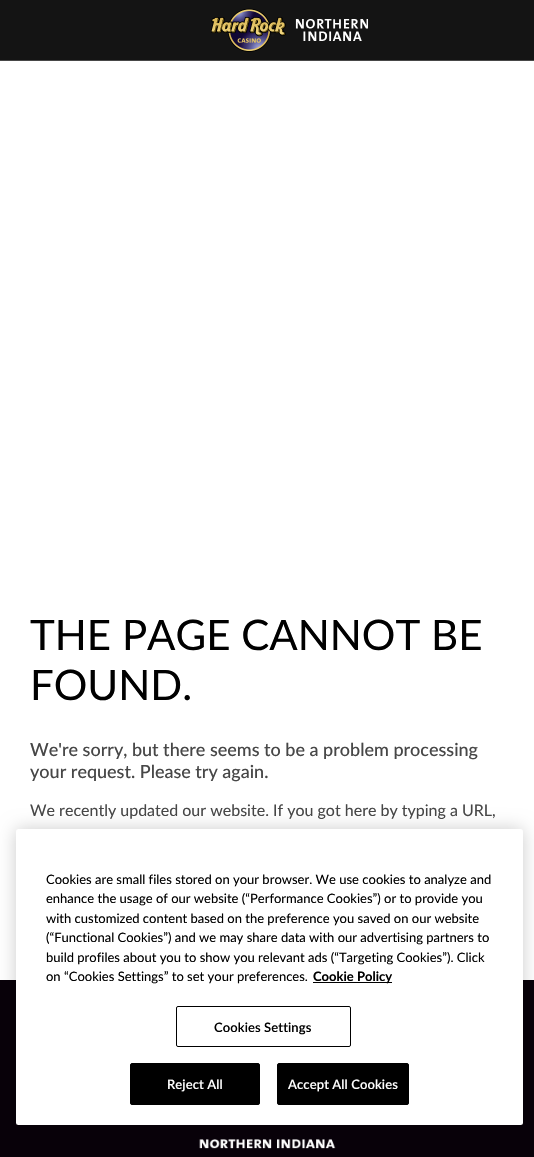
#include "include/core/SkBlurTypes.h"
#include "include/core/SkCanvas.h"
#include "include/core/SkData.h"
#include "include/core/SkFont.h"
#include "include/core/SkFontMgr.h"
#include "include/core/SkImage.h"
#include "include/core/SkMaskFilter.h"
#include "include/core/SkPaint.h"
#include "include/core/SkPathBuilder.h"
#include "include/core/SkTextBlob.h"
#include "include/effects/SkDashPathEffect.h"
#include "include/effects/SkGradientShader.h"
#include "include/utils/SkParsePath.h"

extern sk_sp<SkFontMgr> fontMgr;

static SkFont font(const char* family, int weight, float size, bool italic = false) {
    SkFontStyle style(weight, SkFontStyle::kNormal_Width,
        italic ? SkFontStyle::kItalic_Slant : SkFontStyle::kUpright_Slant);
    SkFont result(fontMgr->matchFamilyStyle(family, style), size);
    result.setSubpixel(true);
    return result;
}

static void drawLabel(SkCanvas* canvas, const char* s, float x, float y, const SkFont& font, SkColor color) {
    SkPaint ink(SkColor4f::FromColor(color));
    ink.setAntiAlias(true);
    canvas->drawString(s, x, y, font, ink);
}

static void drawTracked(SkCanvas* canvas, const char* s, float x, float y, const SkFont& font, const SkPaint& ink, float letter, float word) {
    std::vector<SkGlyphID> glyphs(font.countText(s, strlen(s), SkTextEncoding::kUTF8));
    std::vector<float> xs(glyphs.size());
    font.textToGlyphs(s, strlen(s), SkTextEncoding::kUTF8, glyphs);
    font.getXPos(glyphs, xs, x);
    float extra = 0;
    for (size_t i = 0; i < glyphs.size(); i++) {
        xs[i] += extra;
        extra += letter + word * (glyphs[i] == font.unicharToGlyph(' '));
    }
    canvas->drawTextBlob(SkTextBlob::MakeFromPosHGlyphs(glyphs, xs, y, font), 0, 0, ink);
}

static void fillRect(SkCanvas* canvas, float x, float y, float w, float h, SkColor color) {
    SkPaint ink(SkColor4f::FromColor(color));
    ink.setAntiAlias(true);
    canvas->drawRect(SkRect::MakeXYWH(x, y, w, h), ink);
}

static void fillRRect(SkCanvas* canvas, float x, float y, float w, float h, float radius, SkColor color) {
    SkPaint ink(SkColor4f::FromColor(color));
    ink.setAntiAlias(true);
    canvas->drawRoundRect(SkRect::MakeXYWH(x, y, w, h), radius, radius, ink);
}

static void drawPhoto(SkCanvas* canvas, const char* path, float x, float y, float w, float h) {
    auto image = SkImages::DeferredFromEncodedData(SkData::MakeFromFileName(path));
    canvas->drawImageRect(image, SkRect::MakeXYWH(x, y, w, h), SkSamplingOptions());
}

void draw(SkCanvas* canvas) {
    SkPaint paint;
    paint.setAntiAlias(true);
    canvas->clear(0xFFFFFFFF);
    fillRect(canvas, 0, 0, 534, 60, 0xFF141414);
    drawPhoto(canvas, "assets/img1.png", 211, 8, 157, 44);
    fillRect(canvas, 0, 60, 534, 1, 0xFF474747);
    SkFont font1 = font("Lato", 400, 42);
    drawLabel(canvas, "THE PAGE CANNOT BE", 30, 650, font1, 0xFF000000);
    drawLabel(canvas, "FOUND.", 30, 700, font1, 0xFF000000);
    SkFont font2 = font("Lato", 500, 18);
    drawLabel(canvas, "We're sorry, but there seems to be a problem processing", 30, 756, font2, 0xFF474747);
    drawLabel(canvas, "your request. Please try again.", 30, 778, font2, 0xFF474747);
    SkFont font3 = font("Lato", 400, 16);
    drawLabel(canvas, "We recently updated our website. If you got here by typing a URL,", 30, 816, font3, 0xFF474747);
    fillRect(canvas, 0, 980, 534, 177, 0xFF080109);
    drawPhoto(canvas, "assets/img2.png", 199, 1139, 137, 10);
    paint.setColor(0x33000000);
    paint.setMaskFilter(SkMaskFilter::MakeBlur(kNormal_SkBlurStyle, 9));
    canvas->drawRoundRect(SkRect::MakeXYWH(16, 829, 507, 296), 2.5f, 2.5f, paint);
    paint.setMaskFilter(nullptr);
    fillRRect(canvas, 16, 829, 507, 296, 2.5f, 0xFFFFFFFF);
    SkFont font4 = font("Lato", 400, 13);
    drawLabel(canvas, "Cookies are small files stored on your browser. We use cookies to analyze and", 46, 884, font4, 0xFF000000);
    drawLabel(canvas, "enhance the usage of our website (“Performance Cookies”) or to provide you", 46, 903, font4, 0xFF000000);
    drawLabel(canvas, "with customized content based on the preference you saved on our website", 46, 923, font4, 0xFF000000);
    drawLabel(canvas, "(“Functional Cookies”) and we may share data with our advertising partners to", 46, 942, font4, 0xFF000000);
    drawLabel(canvas, "build profiles about you to show you relevant ads (“Targeting Cookies”). Click", 46, 962, font4, 0xFF000000);
    drawLabel(canvas, "on “Cookies Settings” to set your preferences.", 46, 981, font4, 0xFF000000);
    fillRect(canvas, 313, 982, 79, 1, 0xFF000000);
    SkFont font5 = font("Lato", 700, 13);
    drawLabel(canvas, "Cookie Policy", 313, 981, font5, 0xFF000000);
    paint.setStroke(true);
    paint.setStrokeWidth(1);
    paint.setColor(0xFF000000);
    canvas->drawRoundRect(SkRect::MakeXYWH(176.5f, 1006.5f, 174, 40), 1.5f, 1.5f, paint);
    SkFont font6 = font("Lato", 600, 13);
    paint.setStroke(false);
    drawTracked(canvas, "Cookies Settings", 214, 1032, font6, paint, 0.1f, 0);
    canvas->drawRoundRect(SkRect::MakeXYWH(130.5f, 1063.5f, 129, 41), 1.5f, 1.5f, paint);
    paint.setStroke(true);
    canvas->drawRoundRect(SkRect::MakeXYWH(130.5f, 1063.5f, 129, 41), 1.5f, 1.5f, paint);
    paint.setStroke(false);
    paint.setColor(0xFFFFFFFF);
    drawTracked(canvas, "Reject All", 167, 1089, font6, paint, 0.1f, 0);
    paint.setColor(0xFF000000);
    canvas->drawRoundRect(SkRect::MakeXYWH(277.5f, 1063.5f, 131, 41), 1.5f, 1.5f, paint);
    paint.setStroke(true);
    canvas->drawRoundRect(SkRect::MakeXYWH(277.5f, 1063.5f, 131, 41), 1.5f, 1.5f, paint);
    paint.setStroke(false);
    paint.setColor(0xFFFFFFFF);
    drawTracked(canvas, "Accept All Cookies", 288, 1089, font6, paint, 0.1f, 0);
}
